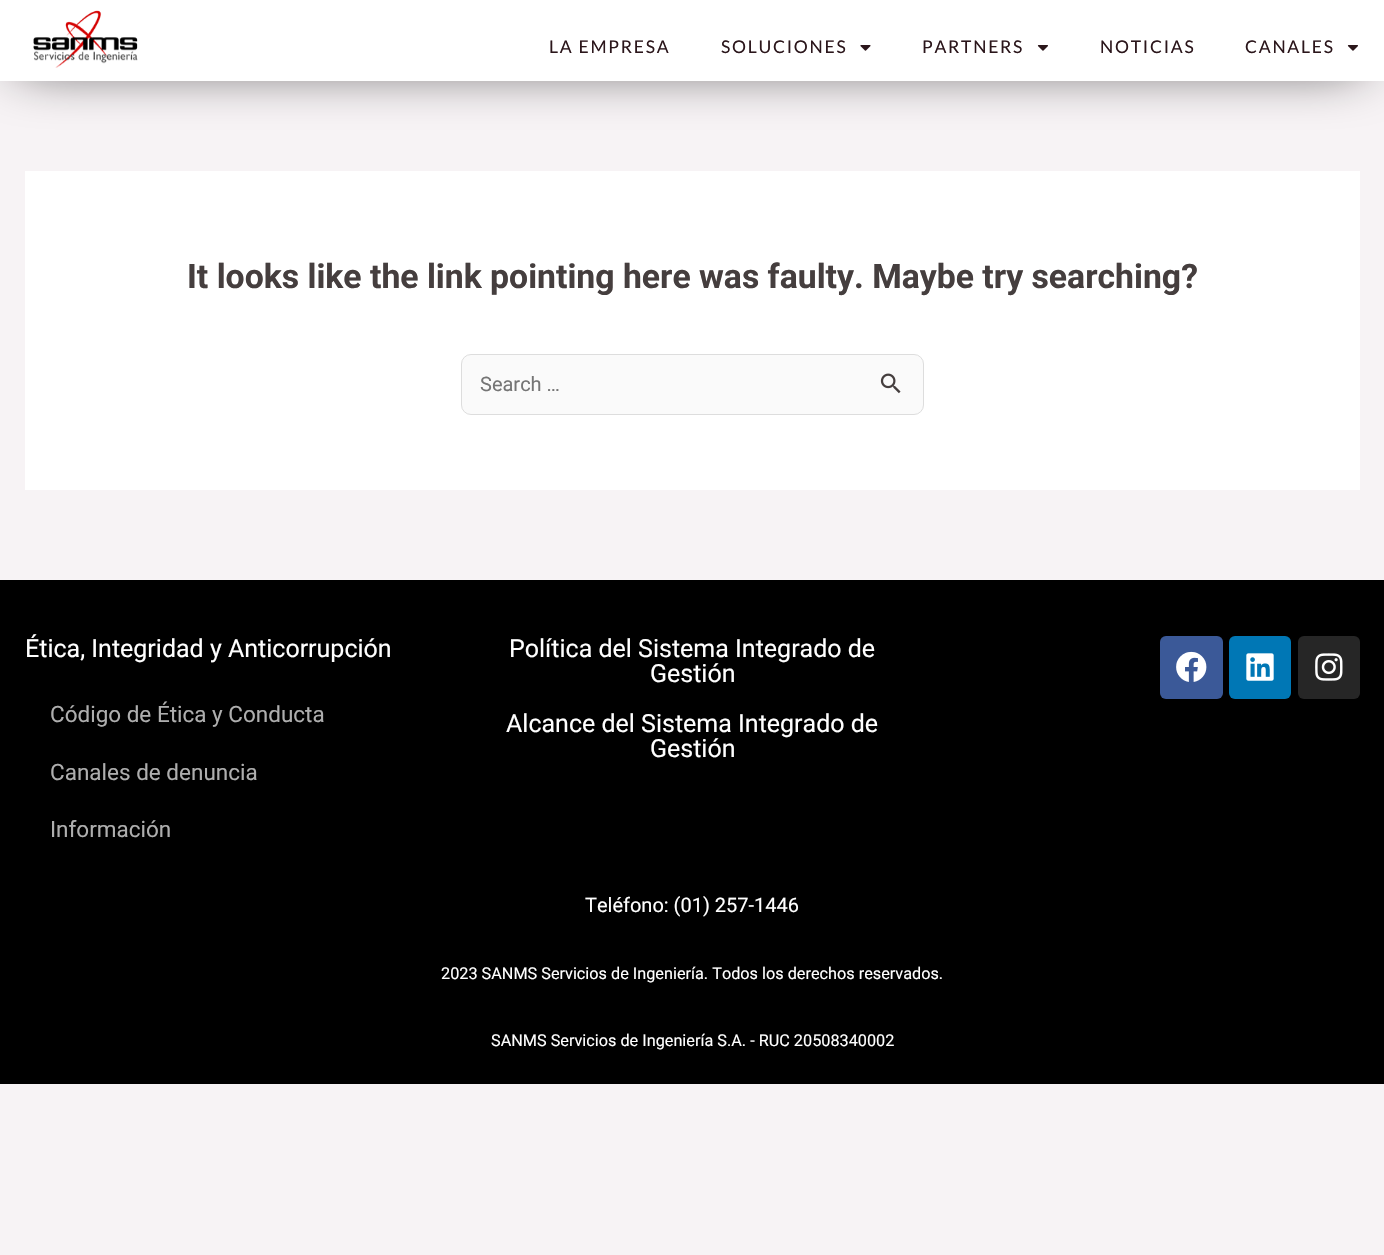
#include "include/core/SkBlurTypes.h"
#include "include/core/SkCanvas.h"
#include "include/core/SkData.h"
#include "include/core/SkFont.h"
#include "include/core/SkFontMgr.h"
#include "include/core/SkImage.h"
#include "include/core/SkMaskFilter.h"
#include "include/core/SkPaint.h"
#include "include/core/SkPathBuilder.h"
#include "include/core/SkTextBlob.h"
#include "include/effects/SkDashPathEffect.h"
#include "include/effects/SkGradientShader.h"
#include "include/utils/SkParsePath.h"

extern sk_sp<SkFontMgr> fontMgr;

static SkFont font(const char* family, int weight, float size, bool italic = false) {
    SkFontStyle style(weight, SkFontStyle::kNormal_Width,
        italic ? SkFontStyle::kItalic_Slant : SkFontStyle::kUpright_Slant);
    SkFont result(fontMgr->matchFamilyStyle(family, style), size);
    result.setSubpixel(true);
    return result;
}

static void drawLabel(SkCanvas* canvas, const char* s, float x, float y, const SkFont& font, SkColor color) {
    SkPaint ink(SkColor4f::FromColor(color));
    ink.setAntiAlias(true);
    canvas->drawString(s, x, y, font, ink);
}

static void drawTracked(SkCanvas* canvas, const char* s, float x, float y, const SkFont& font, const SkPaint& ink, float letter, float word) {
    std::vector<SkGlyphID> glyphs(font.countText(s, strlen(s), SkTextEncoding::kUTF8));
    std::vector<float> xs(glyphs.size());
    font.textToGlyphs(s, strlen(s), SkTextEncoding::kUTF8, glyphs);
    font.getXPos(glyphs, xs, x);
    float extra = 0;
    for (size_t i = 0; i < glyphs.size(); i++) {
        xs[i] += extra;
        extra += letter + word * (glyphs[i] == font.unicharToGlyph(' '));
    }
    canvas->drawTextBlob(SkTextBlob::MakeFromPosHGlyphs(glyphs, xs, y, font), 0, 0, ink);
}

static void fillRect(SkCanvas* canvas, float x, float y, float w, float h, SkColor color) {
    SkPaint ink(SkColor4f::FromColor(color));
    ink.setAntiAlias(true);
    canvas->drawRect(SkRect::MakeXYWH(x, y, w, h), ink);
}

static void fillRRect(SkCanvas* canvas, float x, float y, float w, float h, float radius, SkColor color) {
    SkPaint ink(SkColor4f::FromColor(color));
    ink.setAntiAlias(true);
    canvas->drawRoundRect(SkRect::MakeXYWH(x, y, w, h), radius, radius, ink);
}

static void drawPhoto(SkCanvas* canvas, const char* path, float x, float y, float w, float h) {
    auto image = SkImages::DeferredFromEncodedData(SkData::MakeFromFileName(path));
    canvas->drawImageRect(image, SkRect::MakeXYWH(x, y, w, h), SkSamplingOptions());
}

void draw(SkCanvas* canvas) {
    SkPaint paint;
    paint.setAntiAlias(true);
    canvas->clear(0xFFF7F3F5);
    paint.setColor(0xFA000000);
    paint.setMaskFilter(SkMaskFilter::MakeBlur(kNormal_SkBlurStyle, 29.5f));
    canvas->drawRect(SkRect::MakeXYWH(19, 21, 1342, 39), paint);
    paint.setMaskFilter(nullptr);
    fillRect(canvas, 0, 0, 1384, 81, 0xFFFFFFFF);
    drawPhoto(canvas, "assets/img1.png", 33, 10, 105, 58);
    SkFont font1 = font("Lato", 400, 17.5f);
    paint.setColor(0xFF2B161B);
    drawTracked(canvas, "LA EMPRESA", 549, 53, font1, paint, 1.75f, 0);
    drawTracked(canvas, "SOLUCIONES", 721, 53, font1, paint, 1.75f, 0);
    drawPhoto(canvas, "assets/img2.png", 860, 45, 11, 6);
    drawTracked(canvas, "PARTNERS", 922, 53, font1, paint, 1.75f, 0);
    drawPhoto(canvas, "assets/img3.png", 1037, 45, 11, 6);
    drawTracked(canvas, "NOTICIAS", 1100, 53, font1, paint, 1.75f, 0);
    drawTracked(canvas, "CANALES", 1245, 53, font1, paint, 1.75f, 0);
    drawPhoto(canvas, "assets/img3.png", 1347, 45, 11, 6);
    fillRect(canvas, 25, 171, 1335, 319, 0xFFFFFFFF);
    SkFont font2 = font("Roboto", 700, 33.75f);
    drawLabel(canvas, "It looks like the link pointing here was faulty. Maybe try searching?", 187, 288, font2, 0xFF453E3E);
    paint.setColor(0xFFFAFAFA);
    canvas->drawRoundRect(SkRect::MakeXYWH(461.5f, 354.5f, 462, 60), 9.5f, 9.5f, paint);
    paint.setStroke(true);
    paint.setStrokeWidth(1);
    paint.setColor(0xFFDDDDDD);
    canvas->drawRoundRect(SkRect::MakeXYWH(461.5f, 354.5f, 462, 60), 9.5f, 9.5f, paint);
    SkFont font3 = font("Roboto", 400, 20);
    drawLabel(canvas, "Search …", 480, 391, font3, 0xFF757575);
    drawPhoto(canvas, "assets/img4.png", 880, 373, 21, 21);
    fillRect(canvas, 0, 580, 1384, 504, 0xFF000000);
    SkFont font4 = font("Roboto", 400, 25);
    drawLabel(canvas, "Ética, Integridad y Anticorrupción", 25, 657, font4, 0xFFFFFFFF);
    SkFont font5 = font("Roboto", 400, 22.5f);
    drawLabel(canvas, "Código de Ética y Conducta", 50, 722, font5, 0xFFAEAEAE);
    drawLabel(canvas, "Canales de denuncia", 50, 780, font5, 0xFFAEAEAE);
    drawLabel(canvas, "Información", 50, 837, font5, 0xFFAEAEAE);
    drawLabel(canvas, "Política del Sistema Integrado de", 509, 657, font4, 0xFFFFFFFF);
    drawLabel(canvas, "Gestión", 650, 682, font4, 0xFFFFFFFF);
    drawLabel(canvas, "Alcance del Sistema Integrado de", 506, 732, font4, 0xFFFFFFFF);
    drawLabel(canvas, "Gestión", 650, 757, font4, 0xFFFFFFFF);
    fillRRect(canvas, 1160, 636, 63, 63, 6, 0xFF3B5998);
    drawPhoto(canvas, "assets/img5.png", 1176, 651, 31, 31);
    fillRRect(canvas, 1229, 636, 62, 63, 6, 0xFF0077B5);
    drawPhoto(canvas, "assets/img6.png", 1246, 653, 28, 28);
    fillRRect(canvas, 1298, 636, 62, 63, 6, 0xFF262626);
    drawPhoto(canvas, "assets/img7.png", 1315, 653, 28, 28);
    drawLabel(canvas, "Teléfono: (01) 257-1446", 585, 912, font3, 0xFFFFFFFF);
    SkFont font6 = font("Roboto", 400, 16.25f);
    drawLabel(canvas, "2023 SANMS Servicios de Ingeniería. Todos los derechos reservados.", 441, 979, font6, 0xFFFFFFFF);
    drawLabel(canvas, "SANMS Servicios de Ingeniería S.A. - RUC 20508340002", 491, 1046, font6, 0xFFFFFFFF);
}
